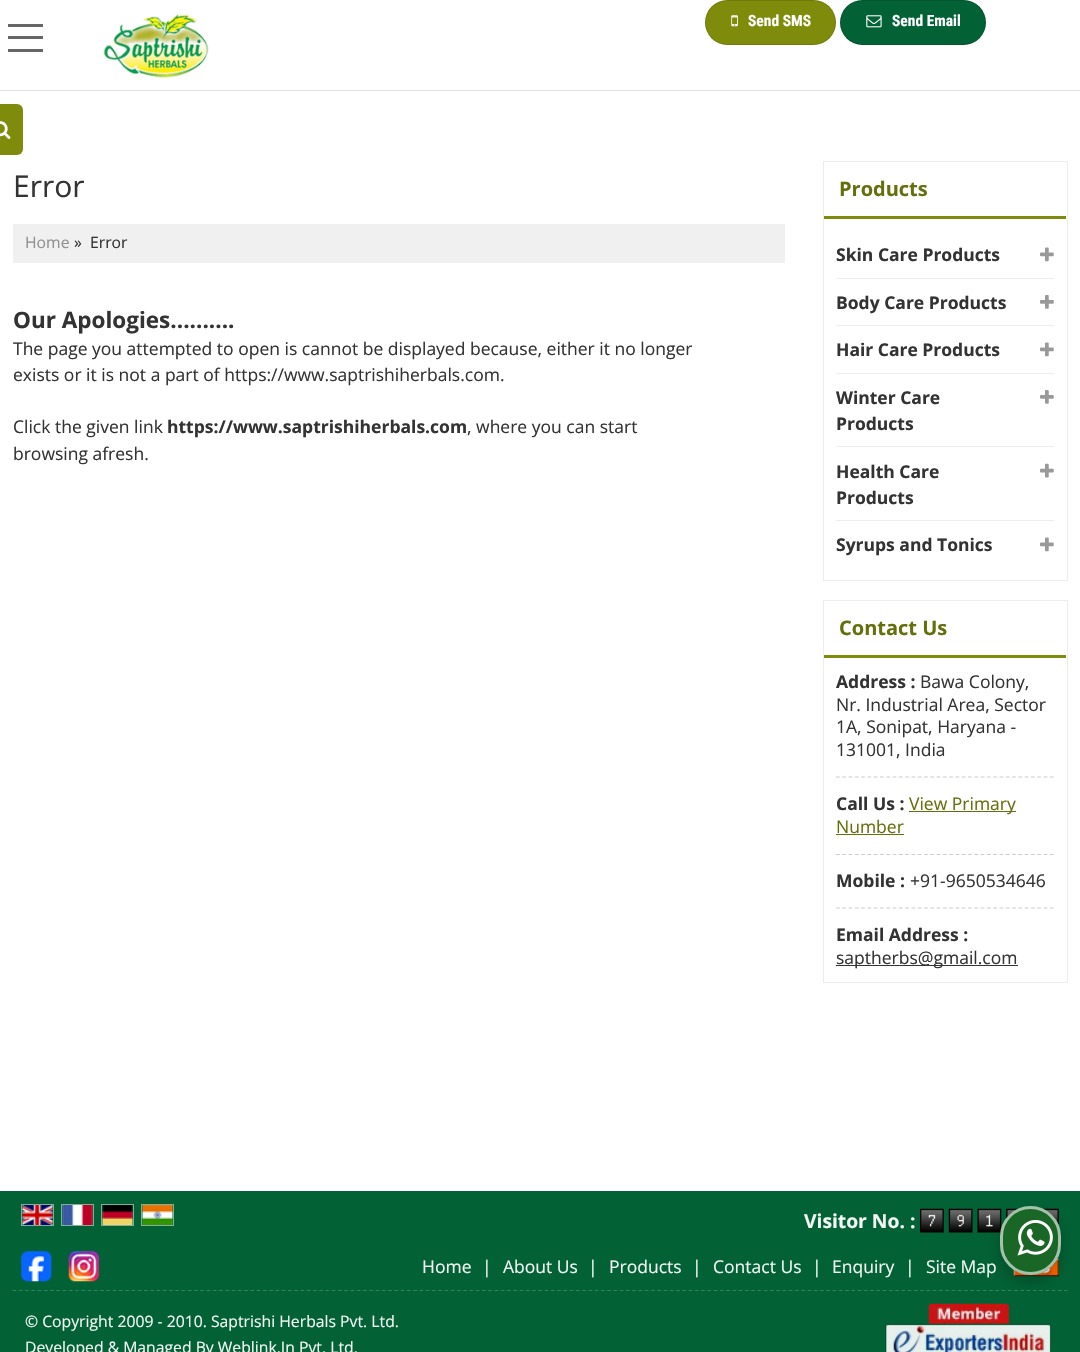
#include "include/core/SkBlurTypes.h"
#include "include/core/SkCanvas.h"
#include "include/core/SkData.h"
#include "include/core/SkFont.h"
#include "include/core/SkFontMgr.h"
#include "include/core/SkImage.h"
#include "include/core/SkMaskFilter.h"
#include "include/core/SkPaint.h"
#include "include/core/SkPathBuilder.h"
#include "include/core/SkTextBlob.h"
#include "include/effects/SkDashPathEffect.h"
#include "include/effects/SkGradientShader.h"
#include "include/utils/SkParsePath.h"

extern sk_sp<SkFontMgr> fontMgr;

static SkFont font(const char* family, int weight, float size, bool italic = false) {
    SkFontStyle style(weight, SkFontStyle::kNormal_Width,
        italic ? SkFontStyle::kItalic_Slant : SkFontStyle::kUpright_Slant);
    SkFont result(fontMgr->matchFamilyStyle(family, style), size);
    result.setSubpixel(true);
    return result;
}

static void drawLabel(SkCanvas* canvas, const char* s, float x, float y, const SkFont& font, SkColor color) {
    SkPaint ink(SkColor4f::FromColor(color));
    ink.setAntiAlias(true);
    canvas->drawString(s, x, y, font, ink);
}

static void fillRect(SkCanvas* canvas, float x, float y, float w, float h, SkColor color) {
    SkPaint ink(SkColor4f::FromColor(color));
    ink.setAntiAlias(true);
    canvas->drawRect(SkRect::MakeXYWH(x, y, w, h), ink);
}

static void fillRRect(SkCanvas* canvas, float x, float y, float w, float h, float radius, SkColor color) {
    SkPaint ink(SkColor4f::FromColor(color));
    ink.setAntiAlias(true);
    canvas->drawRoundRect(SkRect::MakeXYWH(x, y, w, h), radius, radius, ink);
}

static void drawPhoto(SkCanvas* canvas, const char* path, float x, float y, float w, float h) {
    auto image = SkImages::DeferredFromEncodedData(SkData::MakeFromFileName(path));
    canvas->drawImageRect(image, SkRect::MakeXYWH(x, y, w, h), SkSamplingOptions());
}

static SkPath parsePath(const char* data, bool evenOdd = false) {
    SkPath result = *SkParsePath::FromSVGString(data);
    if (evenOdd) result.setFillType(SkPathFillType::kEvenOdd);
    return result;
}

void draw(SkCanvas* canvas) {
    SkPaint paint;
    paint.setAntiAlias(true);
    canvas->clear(0xFFFFFFFF);
    drawPhoto(canvas, "assets/img1.png", 103, 14, 106, 64);
    fillRRect(canvas, 705, 0, 131, 45, 22.5f, 0xFF7F8C0B);
    paint.setStroke(true);
    paint.setStrokeWidth(1);
    paint.setColor(0x21000000);
    canvas->drawRoundRect(SkRect::MakeXYWH(705.5f, 0.5f, 130, 44), 22, 22, paint);
    drawPhoto(canvas, "assets/img2.png", 731, 15, 7, 12);
    SkFont font1 = font("Roboto Condensed", 700, 15.5f);
    drawLabel(canvas, "Send SMS", 748, 26, font1, 0xFFFFFFFF);
    fillRRect(canvas, 840, 0, 146, 45, 22.5f, 0xFF026135);
    canvas->drawRoundRect(SkRect::MakeXYWH(840.5f, 0.5f, 145, 44), 22, 22, paint);
    drawPhoto(canvas, "assets/img3.png", 866, 15, 16, 13);
    drawLabel(canvas, "Send Email", 892, 26, font1, 0xFFFFFFFF);
    fillRect(canvas, 0, 90, 1080, 1, 0xFFDEDEDE);
    fillRect(canvas, 8, 36, 35, 3, 0xFF666666);
    fillRect(canvas, 8, 24, 35, 3, 0xFF666666);
    fillRect(canvas, 8, 49, 35, 3, 0xFF666666);
    fillRRect(canvas, -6, 104, 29, 51, 6, 0xFF7F8C0B);
    drawPhoto(canvas, "assets/img4.png", 0, 121, 11, 18);
    SkFont font2 = font("Open Sans", 400, 30);
    drawLabel(canvas, "Error", 13, 197, font2, 0xFF333333);
    fillRect(canvas, 13, 224, 772, 39, 0xFFF0F0F0);
    SkFont font3 = font("Open Sans", 400, 15.75f);
    drawLabel(canvas, "Home", 25, 248, font3, 0xFF909090);
    drawLabel(canvas, "»  Error", 74, 248, font3, 0xFF333333);
    SkFont font4 = font("Open Sans", 700, 22.5f);
    drawLabel(canvas, "Our Apologies..........", 13, 328, font4, 0xFF333333);
    SkFont font5 = font("Open Sans", 400, 17.5f);
    drawLabel(canvas, "The page you attempted to open is cannot be displayed because, either it no longer", 13, 355, font5, 0xFF333333);
    drawLabel(canvas, "exists or it is not a part of https://www.saptrishiherbals.com.", 13, 381, font5, 0xFF333333);
    drawLabel(canvas, "Click the given link", 13, 433, font5, 0xFF333333);
    SkFont font6 = font("Open Sans", 700, 17.5f);
    drawLabel(canvas, "https://www.saptrishiherbals.com", 167, 433, font6, 0xFF333333);
    drawLabel(canvas, ", where you can start", 467, 433, font5, 0xFF333333);
    drawLabel(canvas, "browsing afresh.", 13, 460, font5, 0xFF333333);
    paint.setColor(0xFFEDEDED);
    canvas->drawRect(SkRect::MakeXYWH(823.5f, 161.5f, 244, 419), paint);
    fillRect(canvas, 824, 216, 242, 3, 0xFF7F8C0B);
    SkFont font7 = font("Open Sans", 700, 20);
    drawLabel(canvas, "Products", 839, 196, font7, 0xFF64700C);
    fillRect(canvas, 836, 278, 218, 1, 0xFFEDEDED);
    drawLabel(canvas, "Skin Care Products", 836, 261, font6, 0xFF333333);
    drawPhoto(canvas, "assets/img5.png", 1040, 247, 14, 15);
    fillRect(canvas, 836, 325, 218, 1, 0xFFEDEDED);
    drawLabel(canvas, "Body Care Products", 836, 309, font6, 0xFF333333);
    drawPhoto(canvas, "assets/img6.png", 1040, 295, 14, 14);
    fillRect(canvas, 836, 373, 218, 1, 0xFFEDEDED);
    drawLabel(canvas, "Hair Care Products", 836, 356, font6, 0xFF333333);
    drawPhoto(canvas, "assets/img5.png", 1040, 342, 14, 15);
    fillRect(canvas, 836, 446, 218, 1, 0xFFEDEDED);
    drawLabel(canvas, "Winter Care", 836, 404, font6, 0xFF333333);
    drawLabel(canvas, "Products", 836, 430, font6, 0xFF333333);
    drawPhoto(canvas, "assets/img6.png", 1040, 390, 14, 14);
    fillRect(canvas, 836, 520, 218, 1, 0xFFEDEDED);
    drawLabel(canvas, "Health Care", 836, 478, font6, 0xFF333333);
    drawLabel(canvas, "Products", 836, 504, font6, 0xFF333333);
    drawPhoto(canvas, "assets/img7.png", 1040, 463, 14, 15);
    drawLabel(canvas, "Syrups and Tonics", 836, 551, font6, 0xFF333333);
    drawPhoto(canvas, "assets/img5.png", 1040, 537, 14, 15);
    canvas->drawRect(SkRect::MakeXYWH(823.5f, 600.5f, 244, 382), paint);
    fillRect(canvas, 824, 655, 242, 3, 0xFF7F8C0B);
    drawLabel(canvas, "Contact Us", 839, 635, font7, 0xFF64700C);
    drawLabel(canvas, "Address :", 836, 688, font6, 0xFF333333);
    drawLabel(canvas, "Bawa Colony,", 920, 688, font5, 0xFF333333);
    drawLabel(canvas, "Nr. Industrial Area, Sector", 836, 711, font5, 0xFF333333);
    drawLabel(canvas, "1A, Sonipat, Haryana -", 836, 733, font5, 0xFF333333);
    drawLabel(canvas, "131001, India", 836, 756, font5, 0xFF333333);
    paint.setStrokeWidth(1.2f);
    paint.setColor(0xFFCCCCCC);
    paint.setPathEffect(SkDashPathEffect::Make({{3.75f, 2.54f}}, 0));
    canvas->drawPath(parsePath("M836 777H1054"), paint);
    paint.setPathEffect(nullptr);
    drawLabel(canvas, "Call Us :", 836, 810, font6, 0xFF333333);
    fillRect(canvas, 909, 811, 107, 1, 0xFF64700C);
    drawLabel(canvas, "View Primary", 909, 810, font5, 0xFF64700C);
    drawLabel(canvas, "Number", 836, 833, font5, 0xFF64700C);
    fillRect(canvas, 836, 834, 68, 1, 0xFF64700C);
    paint.setPathEffect(SkDashPathEffect::Make({{3.75f, 2.54f}}, 0));
    canvas->drawPath(parsePath("M836 854.5H1054"), paint);
    paint.setPathEffect(nullptr);
    drawLabel(canvas, "Mobile :", 836, 887, font6, 0xFF333333);
    drawLabel(canvas, "+91-9650534646", 910, 887, font5, 0xFF333333);
    paint.setPathEffect(SkDashPathEffect::Make({{3.75f, 2.54f}}, 0));
    canvas->drawPath(parsePath("M836 908H1054"), paint);
    paint.setPathEffect(nullptr);
    drawLabel(canvas, "Email Address :", 836, 941, font6, 0xFF333333);
    fillRect(canvas, 836, 965, 182, 1, 0xFF333333);
    drawLabel(canvas, "saptherbs@gmail.com", 836, 964, font5, 0xFF333333);
    fillRect(canvas, 0, 1191, 1080, 161, 0xFF026135);
    paint.setStrokeWidth(1);
    paint.setColor(0xFF81B09A);
    canvas->drawRect(SkRect::MakeXYWH(21.5f, 1204.5f, 32, 21), paint);
    canvas->drawRect(SkRect::MakeXYWH(61.5f, 1204.5f, 32, 21), paint);
    canvas->drawRect(SkRect::MakeXYWH(101.5f, 1204.5f, 32, 21), paint);
    canvas->drawRect(SkRect::MakeXYWH(141.5f, 1204.5f, 32, 21), paint);
    drawPhoto(canvas, "assets/img8.png", 22, 1205, 31, 20);
    drawPhoto(canvas, "assets/img9.png", 62, 1205, 31, 20);
    drawPhoto(canvas, "assets/img10.png", 102, 1205, 31, 20);
    drawPhoto(canvas, "assets/img11.png", 142, 1205, 31, 20);
    SkFont font8 = font("Open Sans", 700, 19.25f);
    drawLabel(canvas, "Visitor No. :", 804, 1228, font8, 0xFFF2F7F5);
    drawPhoto(canvas, "assets/img12.png", 920, 1208, 24, 25);
    drawPhoto(canvas, "assets/img13.png", 948, 1208, 25, 25);
    drawPhoto(canvas, "assets/img14.png", 977, 1208, 25, 25);
    drawPhoto(canvas, "assets/img15.png", 1006, 1208, 14, 11);
    drawPhoto(canvas, "assets/img16.png", 1041, 1208, 18, 18);
    drawPhoto(canvas, "assets/img17.png", 21, 1251, 31, 31);
    drawPhoto(canvas, "assets/img18.png", 68, 1251, 31, 31);
    drawLabel(canvas, "Home", 422, 1273, font5, 0xFFF2F7F5);
    drawLabel(canvas, "|", 482, 1273, font5, 0xFFF2F7F5);
    drawLabel(canvas, "About Us", 503, 1273, font5, 0xFFF2F7F5);
    drawLabel(canvas, "|", 588, 1273, font5, 0xFFF2F7F5);
    drawLabel(canvas, "Products", 609, 1273, font5, 0xFFF2F7F5);
    drawLabel(canvas, "|", 692, 1273, font5, 0xFFF2F7F5);
    drawLabel(canvas, "Contact Us", 713, 1273, font5, 0xFFF2F7F5);
    drawLabel(canvas, "|", 812, 1273, font5, 0xFFF2F7F5);
    drawLabel(canvas, "Enquiry", 832, 1273, font5, 0xFFF2F7F5);
    drawLabel(canvas, "|", 905, 1273, font5, 0xFFF2F7F5);
    drawLabel(canvas, "Site Map", 926, 1273, font5, 0xFFF2F7F5);
    drawPhoto(canvas, "assets/img19.png", 1013, 1258, 46, 19);
    paint.setStrokeWidth(1.2f);
    paint.setColor(0xFF35815D);
    paint.setPathEffect(SkDashPathEffect::Make({{3.75f, 2.51f}}, 0));
    canvas->drawPath(parsePath("M12.5 1290.5H1067.5"), paint);
    paint.setPathEffect(nullptr);
    drawLabel(canvas, "© Copyright 2009 - 2010. Saptrishi Herbals Pvt. Ltd.", 25, 1327, font3, 0xFFF2F7F5);
    drawLabel(canvas, "Developed & Managed By Weblink.In Pvt. Ltd.", 25, 1353, font3, 0xFFF2F7F5);
    drawPhoto(canvas, "assets/img20.png", 885, 1303, 167, 49);
    paint.setStroke(false);
    paint.setColor(0x24000000);
    paint.setMaskFilter(SkMaskFilter::MakeBlur(kNormal_SkBlurStyle, 5));
    canvas->drawRoundRect(SkRect::MakeXYWH(998, 1211, 66, 74), 33, 33, paint);
    paint.setMaskFilter(nullptr);
    fillRRect(canvas, 1000, 1206, 61, 69, 30.5f, 0xFF196626);
    paint.setStroke(true);
    paint.setStrokeWidth(3);
    paint.setColor(0x99FFFFFF);
    canvas->drawRoundRect(SkRect::MakeXYWH(1001.5f, 1207.5f, 58, 66), 29, 29, paint);
    drawPhoto(canvas, "assets/img21.png", 1017, 1219, 36, 37);
}
